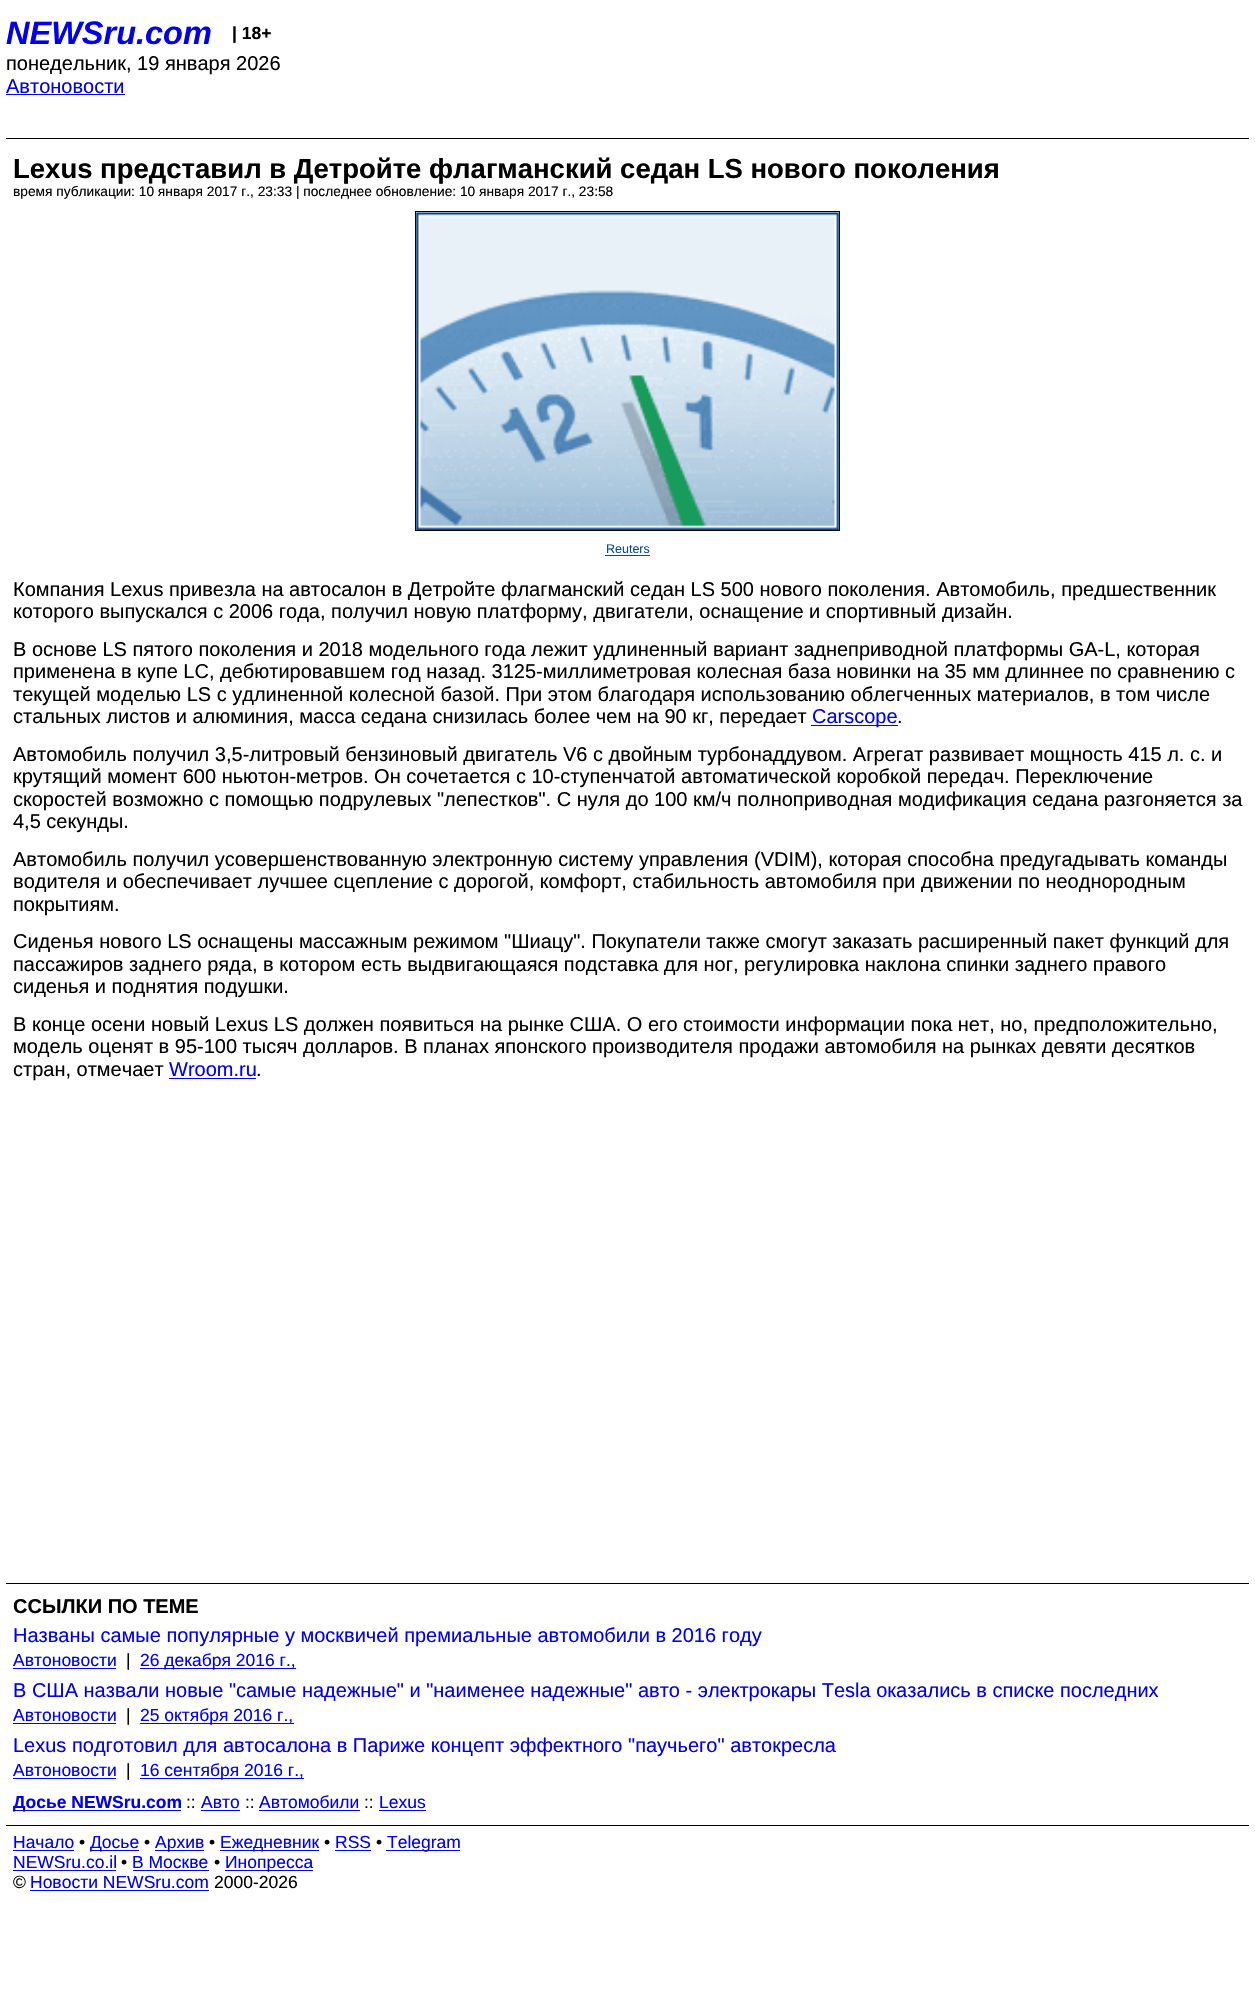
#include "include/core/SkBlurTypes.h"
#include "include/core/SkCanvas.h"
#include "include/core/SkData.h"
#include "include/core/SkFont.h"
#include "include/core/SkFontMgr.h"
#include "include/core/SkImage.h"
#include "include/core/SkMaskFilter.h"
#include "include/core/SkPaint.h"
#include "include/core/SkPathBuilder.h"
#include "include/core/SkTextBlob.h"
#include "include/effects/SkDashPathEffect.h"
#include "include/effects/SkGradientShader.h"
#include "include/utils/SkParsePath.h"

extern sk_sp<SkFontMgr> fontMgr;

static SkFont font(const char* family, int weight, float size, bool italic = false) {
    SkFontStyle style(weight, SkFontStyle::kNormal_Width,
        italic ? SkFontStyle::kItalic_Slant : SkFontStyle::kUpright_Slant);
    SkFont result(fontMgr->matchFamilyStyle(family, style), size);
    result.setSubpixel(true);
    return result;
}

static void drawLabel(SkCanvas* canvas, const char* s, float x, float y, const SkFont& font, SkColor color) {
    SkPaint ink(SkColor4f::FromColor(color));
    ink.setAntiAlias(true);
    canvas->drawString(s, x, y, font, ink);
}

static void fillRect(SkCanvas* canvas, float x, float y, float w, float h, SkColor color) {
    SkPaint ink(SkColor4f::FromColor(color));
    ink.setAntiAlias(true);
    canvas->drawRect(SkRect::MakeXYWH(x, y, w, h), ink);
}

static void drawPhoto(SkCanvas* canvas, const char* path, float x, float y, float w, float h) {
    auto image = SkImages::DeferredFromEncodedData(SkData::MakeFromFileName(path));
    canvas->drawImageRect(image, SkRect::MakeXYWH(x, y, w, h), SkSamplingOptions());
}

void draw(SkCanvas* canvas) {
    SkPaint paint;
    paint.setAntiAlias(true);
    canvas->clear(0xFFFFFFFF);
    fillRect(canvas, 6, 138, 1243, 1, 0xFF000000);
    SkFont font1 = font("Liberation Sans", 700, 32.5f, true);
    drawLabel(canvas, "NEWSru.com", 6, 44, font1, 0xFF0000EE);
    SkFont font2 = font("Liberation Sans", 700, 17.5f);
    drawLabel(canvas, "| 18+", 232, 39, font2, 0xFF000000);
    SkFont font3 = font("Liberation Sans", 400, 20);
    drawLabel(canvas, "понедельник, 19 января 2026", 6, 70, font3, 0xFF000000);
    drawLabel(canvas, "Автоновости", 6, 93, font3, 0xFF0000EE);
    fillRect(canvas, 6, 94, 119, 1, 0xFF0000EE);
    fillRect(canvas, 6, 1583, 1243, 1, 0xFF000000);
    SkFont font4 = font("Liberation Sans", 700, 27.5f);
    drawLabel(canvas, "Lexus представил в Детройте флагманский седан LS нового поколения", 13, 178, font4, 0xFF000000);
    SkFont font5 = font("Liberation Sans", 400, 13.75f);
    drawLabel(canvas, "время публикации: 10 января 2017 г., 23:33 | последнее обновление: 10 января 2017 г., 23:58", 13, 196, font5, 0xFF000000);
    paint.setStroke(true);
    paint.setStrokeWidth(1);
    paint.setColor(0xFF000000);
    canvas->drawRect(SkRect::MakeXYWH(415.5f, 211.5f, 424, 319), paint);
    drawPhoto(canvas, "assets/img1.png", 416, 212, 423, 318);
    SkFont font6 = font("Liberation Sans", 400, 12.5f);
    drawLabel(canvas, "Reuters", 606, 553, font6, 0xFF09488F);
    fillRect(canvas, 605, 555, 45, 1, 0xFF09488F);
    drawLabel(canvas, "Компания Lexus привезла на автосалон в Детройте флагманский седан LS 500 нового поколения. Автомобиль, предшественник", 13, 596, font3, 0xFF000000);
    drawLabel(canvas, "которого выпускался с 2006 года, получил новую платформу, двигатели, оснащение и спортивный дизайн.", 13, 618, font3, 0xFF000000);
    drawLabel(canvas, "В основе LS пятого поколения и 2018 модельного года лежит удлиненный вариант заднеприводной платформы GA-L, которая", 13, 656, font3, 0xFF000000);
    drawLabel(canvas, "применена в купе LC, дебютировавшем год назад. 3125-миллиметровая колесная база новинки на 35 мм длиннее по сравнению с", 13, 678, font3, 0xFF000000);
    drawLabel(canvas, "текущей моделью LS с удлиненной колесной базой. При этом благодаря использованию облегченных материалов, в том числе", 13, 701, font3, 0xFF000000);
    drawLabel(canvas, "стальных листов и алюминия, масса седана снизилась более чем на 90 кг, передает", 13, 723, font3, 0xFF000000);
    fillRect(canvas, 811, 725, 87, 1, 0xFF0000EE);
    drawLabel(canvas, "Carscope", 812, 723, font3, 0xFF0000EE);
    drawLabel(canvas, ".", 897, 723, font3, 0xFF000000);
    drawLabel(canvas, "Автомобиль получил 3,5-литровый бензиновый двигатель V6 с двойным турбонаддувом. Агрегат развивает мощность 415 л. с. и", 13, 761, font3, 0xFF000000);
    drawLabel(canvas, "крутящий момент 600 ньютон-метров. Он сочетается с 10-ступенчатой автоматической коробкой передач. Переключение", 13, 783, font3, 0xFF000000);
    drawLabel(canvas, "скоростей возможно с помощью подрулевых \"лепестков\". С нуля до 100 км/ч полноприводная модификация седана разгоняется за", 13, 806, font3, 0xFF000000);
    drawLabel(canvas, "4,5 секунды.", 13, 828, font3, 0xFF000000);
    drawLabel(canvas, "Автомобиль получил усовершенствованную электронную систему управления (VDIM), которая способна предугадывать команды", 13, 866, font3, 0xFF000000);
    drawLabel(canvas, "водителя и обеспечивает лучшее сцепление с дорогой, комфорт, стабильность автомобиля при движении по неоднородным", 13, 888, font3, 0xFF000000);
    drawLabel(canvas, "покрытиям.", 13, 911, font3, 0xFF000000);
    drawLabel(canvas, "Сиденья нового LS оснащены массажным режимом \"Шиацу\". Покупатели также смогут заказать расширенный пакет функций для", 13, 948, font3, 0xFF000000);
    drawLabel(canvas, "пассажиров заднего ряда, в котором есть выдвигающаяся подставка для ног, регулировка наклона спинки заднего правого", 13, 971, font3, 0xFF000000);
    drawLabel(canvas, "сиденья и поднятия подушки.", 13, 993, font3, 0xFF000000);
    drawLabel(canvas, "В конце осени новый Lexus LS должен появиться на рынке США. О его стоимости информации пока нет, но, предположительно,", 13, 1031, font3, 0xFF000000);
    drawLabel(canvas, "модель оценят в 95-100 тысяч долларов. В планах японского производителя продажи автомобиля на рынках девяти десятков", 13, 1053, font3, 0xFF000000);
    drawLabel(canvas, "стран, отмечает", 13, 1076, font3, 0xFF000000);
    drawLabel(canvas, "Wroom.ru", 169, 1076, font3, 0xFF0000EE);
    fillRect(canvas, 169, 1078, 87, 1, 0xFF0000EE);
    drawLabel(canvas, ".", 256, 1076, font3, 0xFF000000);
    SkFont font7 = font("Liberation Sans", 700, 20);
    drawLabel(canvas, "ССЫЛКИ ПО ТЕМЕ", 13, 1613, font7, 0xFF000000);
    drawLabel(canvas, "Названы самые популярные у москвичей премиальные автомобили в 2016 году", 13, 1642, font3, 0xFF0000EE);
    SkFont font8 = font("Liberation Sans", 400, 17.5f);
    drawLabel(canvas, "Автоновости", 13, 1666, font8, 0xFF0000EE);
    fillRect(canvas, 13, 1668, 103, 1, 0xFF0000EE);
    drawLabel(canvas, "|", 126, 1666, font8, 0xFF000000);
    fillRect(canvas, 140, 1668, 156, 1, 0xFF0000EE);
    drawLabel(canvas, "26 декабря 2016 г.,", 140, 1666, font8, 0xFF0000EE);
    drawLabel(canvas, "В США назвали новые \"самые надежные\" и \"наименее надежные\" авто - электрокары Tesla оказались в списке последних", 13, 1697, font3, 0xFF0000EE);
    drawLabel(canvas, "Автоновости", 13, 1721, font8, 0xFF0000EE);
    fillRect(canvas, 13, 1723, 103, 1, 0xFF0000EE);
    drawLabel(canvas, "|", 126, 1721, font8, 0xFF000000);
    fillRect(canvas, 140, 1723, 154, 1, 0xFF0000EE);
    drawLabel(canvas, "25 октября 2016 г.,", 140, 1721, font8, 0xFF0000EE);
    drawLabel(canvas, "Lexus подготовил для автосалона в Париже концепт эффектного \"паучьего\" автокресла", 13, 1752, font3, 0xFF0000EE);
    drawLabel(canvas, "Автоновости", 13, 1776, font8, 0xFF0000EE);
    fillRect(canvas, 13, 1778, 103, 1, 0xFF0000EE);
    drawLabel(canvas, "|", 126, 1776, font8, 0xFF000000);
    fillRect(canvas, 140, 1778, 164, 1, 0xFF0000EE);
    drawLabel(canvas, "16 сентября 2016 г.,", 140, 1776, font8, 0xFF0000EE);
    fillRect(canvas, 13, 1810, 168, 1, 0xFF0000EE);
    drawLabel(canvas, "Досье NEWSru.com", 13, 1808, font2, 0xFF0000EE);
    drawLabel(canvas, "::", 186, 1808, font8, 0xFF000000);
    drawLabel(canvas, "Авто", 201, 1808, font8, 0xFF0000EE);
    fillRect(canvas, 201, 1810, 39, 1, 0xFF0000EE);
    drawLabel(canvas, "::", 245, 1808, font8, 0xFF000000);
    drawLabel(canvas, "Автомобили", 259, 1808, font8, 0xFF0000EE);
    fillRect(canvas, 259, 1810, 101, 1, 0xFF0000EE);
    drawLabel(canvas, "::", 364, 1808, font8, 0xFF000000);
    drawLabel(canvas, "Lexus", 379, 1808, font8, 0xFF0000EE);
    fillRect(canvas, 379, 1810, 47, 1, 0xFF0000EE);
    fillRect(canvas, 6, 1825, 1243, 1, 0xFF000000);
    drawLabel(canvas, "Начало", 13, 1848, font8, 0xFF0000EE);
    fillRect(canvas, 13, 1850, 61, 1, 0xFF0000EE);
    drawLabel(canvas, "•", 79, 1848, font8, 0xFF000000);
    fillRect(canvas, 90, 1850, 49, 1, 0xFF0000EE);
    drawLabel(canvas, "Досье", 90, 1848, font8, 0xFF0000EE);
    drawLabel(canvas, "•", 144, 1848, font8, 0xFF000000);
    fillRect(canvas, 155, 1850, 49, 1, 0xFF0000EE);
    drawLabel(canvas, "Архив", 155, 1848, font8, 0xFF0000EE);
    drawLabel(canvas, "•", 209, 1848, font8, 0xFF000000);
    fillRect(canvas, 220, 1850, 99, 1, 0xFF0000EE);
    drawLabel(canvas, "Ежедневник", 220, 1848, font8, 0xFF0000EE);
    drawLabel(canvas, "•", 324, 1848, font8, 0xFF000000);
    drawLabel(canvas, "RSS", 335, 1848, font8, 0xFF0000EE);
    fillRect(canvas, 335, 1850, 36, 1, 0xFF0000EE);
    drawLabel(canvas, "•", 376, 1848, font8, 0xFF000000);
    fillRect(canvas, 386, 1850, 74, 1, 0xFF0000EE);
    drawLabel(canvas, "Telegram", 387, 1848, font8, 0xFF0000EE);
    drawLabel(canvas, "NEWSru.co.il", 13, 1868, font8, 0xFF0000EE);
    fillRect(canvas, 13, 1870, 103, 1, 0xFF0000EE);
    drawLabel(canvas, "•", 121, 1868, font8, 0xFF000000);
    drawLabel(canvas, "В Москве", 132, 1868, font8, 0xFF0000EE);
    fillRect(canvas, 133, 1870, 76, 1, 0xFF0000EE);
    drawLabel(canvas, "•", 214, 1868, font8, 0xFF000000);
    fillRect(canvas, 225, 1870, 88, 1, 0xFF0000EE);
    drawLabel(canvas, "Инопресса", 225, 1868, font8, 0xFF0000EE);
    drawLabel(canvas, "©", 13, 1888, font8, 0xFF000000);
    drawLabel(canvas, "Новости NEWSru.com", 30, 1888, font8, 0xFF0000EE);
    fillRect(canvas, 30, 1890, 179, 1, 0xFF0000EE);
    drawLabel(canvas, "2000-2026", 214, 1888, font8, 0xFF000000);
}
